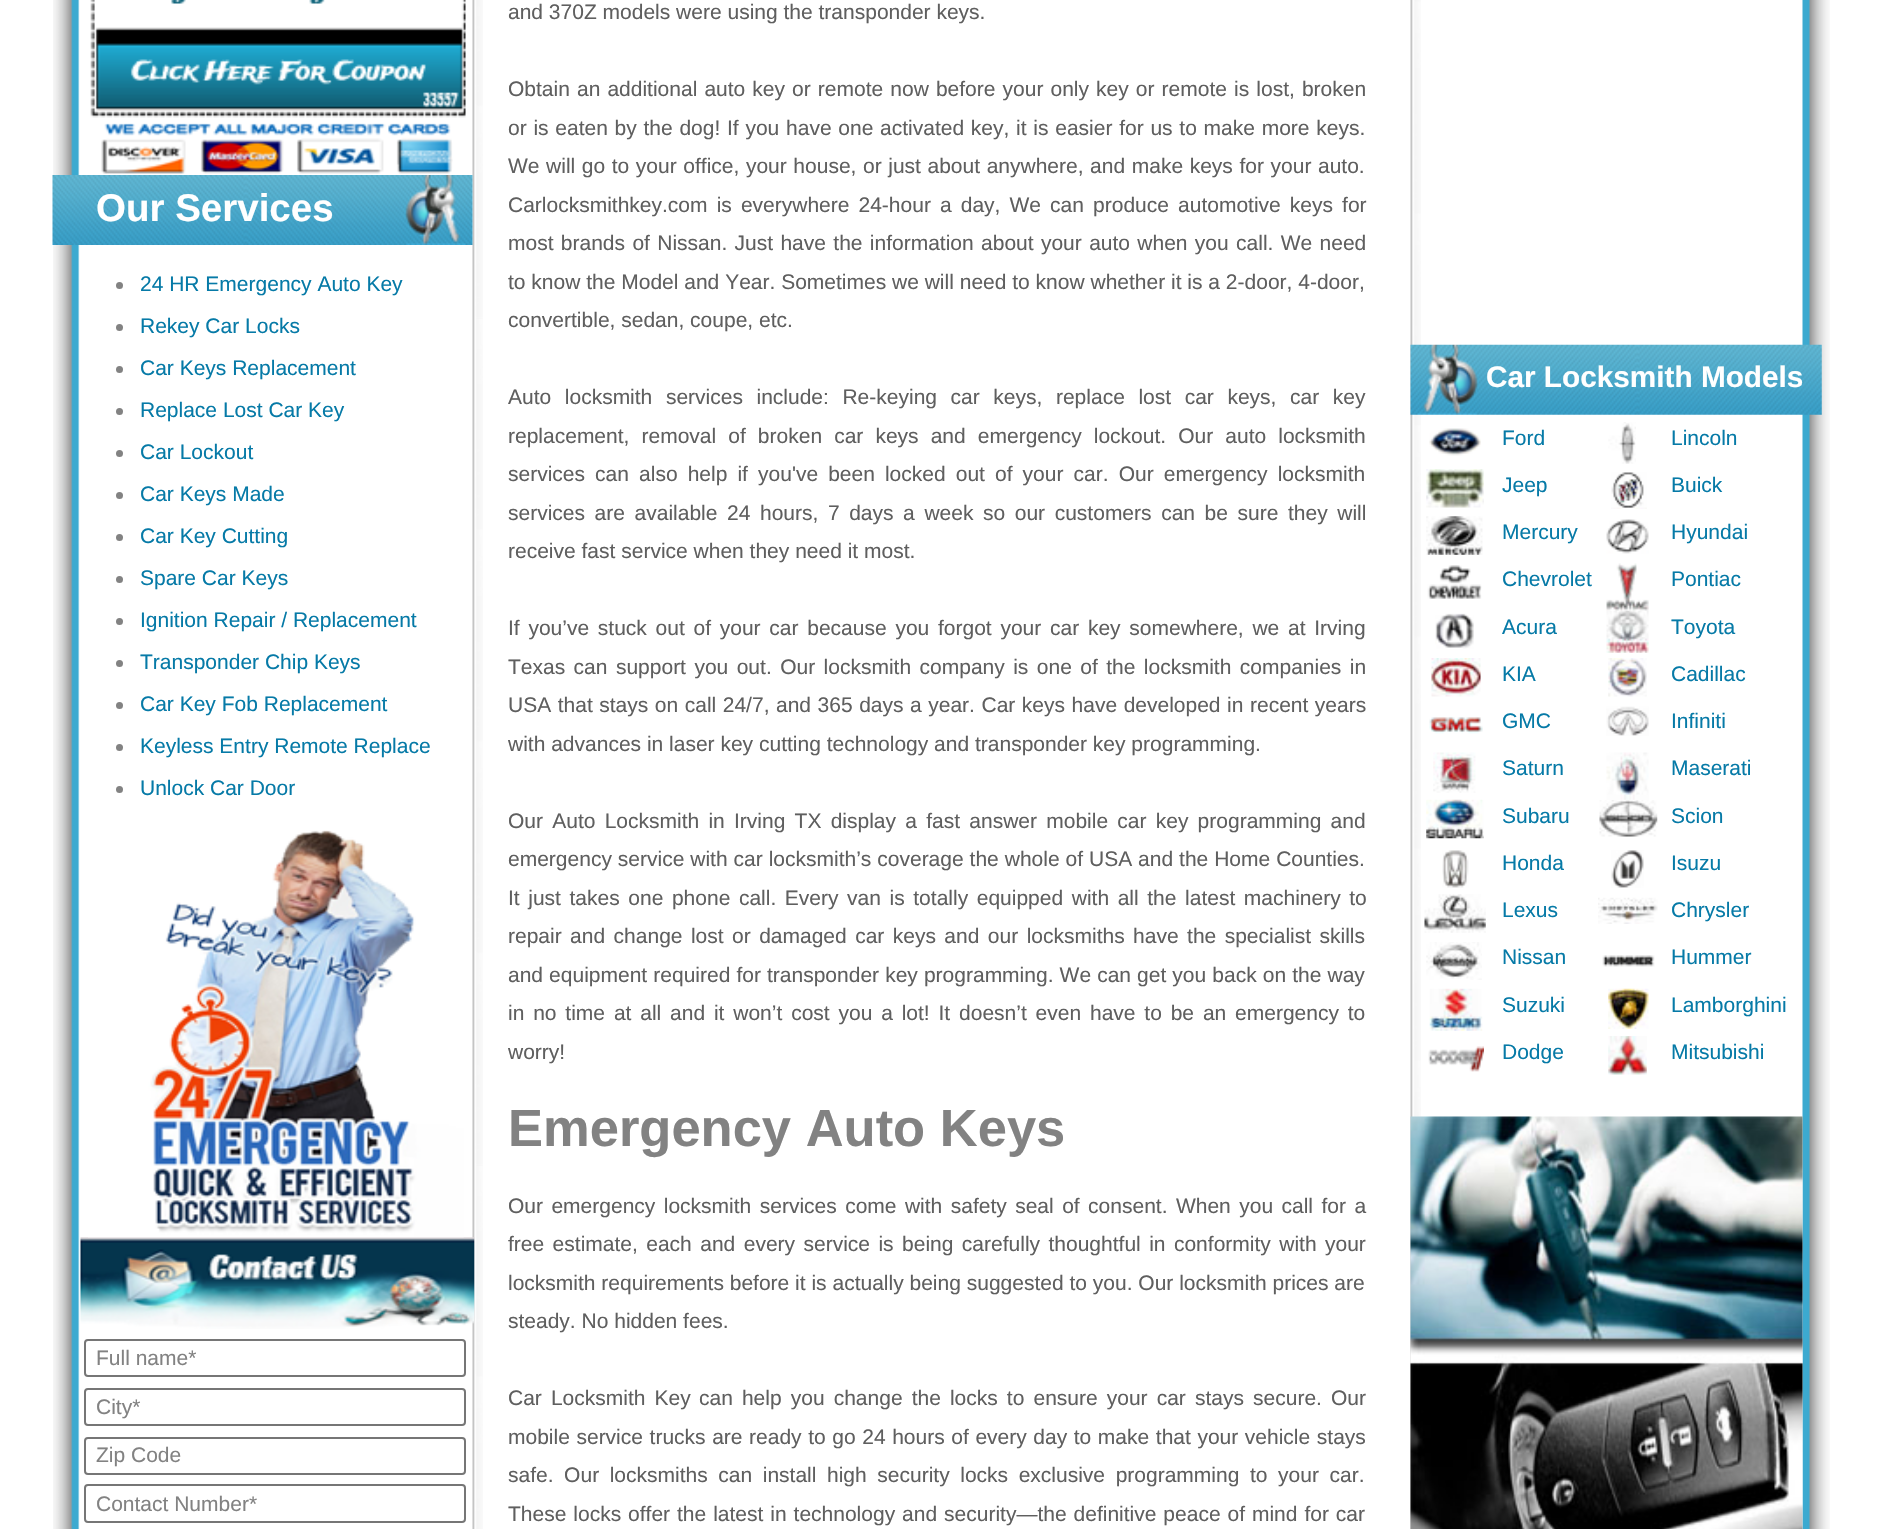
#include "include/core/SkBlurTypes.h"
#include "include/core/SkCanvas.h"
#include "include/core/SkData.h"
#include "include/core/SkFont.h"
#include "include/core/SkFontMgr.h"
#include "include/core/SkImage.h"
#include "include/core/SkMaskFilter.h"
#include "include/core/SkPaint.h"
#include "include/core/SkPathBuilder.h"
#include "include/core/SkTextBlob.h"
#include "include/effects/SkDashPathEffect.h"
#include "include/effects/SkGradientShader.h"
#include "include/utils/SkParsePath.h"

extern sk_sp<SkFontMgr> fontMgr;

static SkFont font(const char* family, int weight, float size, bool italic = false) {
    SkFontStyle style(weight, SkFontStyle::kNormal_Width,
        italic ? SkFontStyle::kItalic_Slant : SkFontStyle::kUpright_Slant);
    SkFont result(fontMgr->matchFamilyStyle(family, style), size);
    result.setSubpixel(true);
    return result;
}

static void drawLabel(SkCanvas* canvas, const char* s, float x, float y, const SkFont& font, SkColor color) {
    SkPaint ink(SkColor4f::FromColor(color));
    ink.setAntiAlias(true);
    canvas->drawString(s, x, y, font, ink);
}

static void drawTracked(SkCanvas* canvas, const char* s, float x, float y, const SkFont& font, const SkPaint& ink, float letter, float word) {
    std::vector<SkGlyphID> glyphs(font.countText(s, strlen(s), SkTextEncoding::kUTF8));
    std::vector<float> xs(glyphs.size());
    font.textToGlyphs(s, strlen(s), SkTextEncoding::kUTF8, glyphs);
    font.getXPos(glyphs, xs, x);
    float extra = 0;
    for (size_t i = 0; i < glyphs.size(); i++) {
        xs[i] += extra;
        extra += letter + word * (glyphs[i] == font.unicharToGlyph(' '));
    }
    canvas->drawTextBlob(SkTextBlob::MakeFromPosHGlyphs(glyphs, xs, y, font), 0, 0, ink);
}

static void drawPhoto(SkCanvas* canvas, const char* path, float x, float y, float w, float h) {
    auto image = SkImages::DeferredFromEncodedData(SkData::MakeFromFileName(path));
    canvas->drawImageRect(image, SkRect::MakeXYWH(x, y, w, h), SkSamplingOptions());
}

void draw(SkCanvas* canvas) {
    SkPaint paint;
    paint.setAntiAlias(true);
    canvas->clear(0xFFFFFFFF);
    drawPhoto(canvas, "assets/img1.png", 53, 0, 1777, 1529);
    drawPhoto(canvas, "assets/img2.png", 472, 0, 11, 1529);
    drawPhoto(canvas, "assets/img3.png", 90, 0, 376, 118);
    drawPhoto(canvas, "assets/img4.png", 101, 123, 352, 51);
    drawPhoto(canvas, "assets/img5.png", 52, 175, 421, 70);
    SkFont font1 = font("Liberation Sans", 700, 38.5f);
    drawLabel(canvas, "Our Services", 96, 221, font1, 0xFFFFFFFF);
    paint.setColor(0xFF828282);
    canvas->drawCircle(119.5f, 285.5f, 3.5f, paint);
    SkFont font2 = font("Liberation Sans", 400, 21);
    drawLabel(canvas, "24 HR Emergency Auto Key", 140, 291, font2, 0xFF067AA7);
    canvas->drawCircle(119.5f, 327.5f, 3.5f, paint);
    drawLabel(canvas, "Rekey Car Locks", 140, 333, font2, 0xFF067AA7);
    canvas->drawCircle(119.5f, 369.5f, 3.5f, paint);
    drawLabel(canvas, "Car Keys Replacement", 140, 375, font2, 0xFF067AA7);
    canvas->drawCircle(119.5f, 411.5f, 3.5f, paint);
    drawLabel(canvas, "Replace Lost Car Key", 140, 417, font2, 0xFF067AA7);
    canvas->drawCircle(119.5f, 453.5f, 3.5f, paint);
    drawLabel(canvas, "Car Lockout", 140, 459, font2, 0xFF067AA7);
    canvas->drawCircle(119.5f, 495.5f, 3.5f, paint);
    drawLabel(canvas, "Car Keys Made", 140, 501, font2, 0xFF067AA7);
    canvas->drawCircle(119.5f, 537.5f, 3.5f, paint);
    drawLabel(canvas, "Car Key Cutting", 140, 543, font2, 0xFF067AA7);
    canvas->drawCircle(119.5f, 579.5f, 3.5f, paint);
    drawLabel(canvas, "Spare Car Keys", 140, 585, font2, 0xFF067AA7);
    canvas->drawCircle(119.5f, 621.5f, 3.5f, paint);
    drawLabel(canvas, "Ignition Repair / Replacement", 140, 627, font2, 0xFF067AA7);
    canvas->drawCircle(119.5f, 663.5f, 3.5f, paint);
    drawLabel(canvas, "Transponder Chip Keys", 140, 669, font2, 0xFF067AA7);
    canvas->drawCircle(119.5f, 705.5f, 3.5f, paint);
    drawLabel(canvas, "Car Key Fob Replacement", 140, 711, font2, 0xFF067AA7);
    canvas->drawCircle(119.5f, 747.5f, 3.5f, paint);
    drawLabel(canvas, "Keyless Entry Remote Replace", 140, 753, font2, 0xFF067AA7);
    canvas->drawCircle(119.5f, 789.5f, 3.5f, paint);
    drawLabel(canvas, "Unlock Car Door", 140, 795, font2, 0xFF067AA7);
    drawPhoto(canvas, "assets/img7.png", 80, 1237, 395, 92);
    drawPhoto(canvas, "assets/img6.png", 88, 830, 376, 408);
    paint.setStroke(true);
    paint.setStrokeWidth(2);
    paint.setColor(0xFF767676);
    canvas->drawRoundRect(SkRect::MakeXYWH(85, 1340, 380, 36), 3, 3, paint);
    drawLabel(canvas, "Full name*", 96, 1365, font2, 0xFF828282);
    canvas->drawRoundRect(SkRect::MakeXYWH(85, 1389, 380, 36), 3, 3, paint);
    drawLabel(canvas, "City*", 96, 1414, font2, 0xFF828282);
    canvas->drawRoundRect(SkRect::MakeXYWH(85, 1438, 380, 36), 3, 3, paint);
    drawLabel(canvas, "Zip Code", 96, 1462, font2, 0xFF828282);
    canvas->drawRoundRect(SkRect::MakeXYWH(85, 1485, 380, 37), 3, 3, paint);
    drawLabel(canvas, "Contact Number*", 96, 1511, font2, 0xFF828282);
    drawLabel(canvas, "and 370Z models were using the transponder keys.", 508, 19, font2, 0xFF5F5F5F);
    paint.setStroke(false);
    paint.setColor(0xFF5F5F5F);
    drawTracked(canvas, "Obtain an additional auto key or remote now before your only key or remote is lost, broken", 508, 96, font2, paint, 0, 1.25f);
    drawTracked(canvas, "or is eaten by the dog! If you have one activated key, it is easier for us to make more keys.", 508, 135, font2, paint, 0, 0.9f);
    drawTracked(canvas, "We will go to your office, your house, or just about anywhere, and make keys for your auto.", 508, 173, font2, paint, 0, 0.75f);
    drawTracked(canvas, "Carlocksmithkey.com is everywhere 24-hour a day, We can produce automotive keys for", 508, 212, font2, paint, 0, 3.25f);
    drawTracked(canvas, "most brands of Nissan. Just have the information about your auto when you call. We need", 508, 250, font2, paint, 0, 1.5f);
    drawLabel(canvas, "to know the Model and Year. Sometimes we will need to know whether it is a 2-door, 4-door,", 508, 289, font2, 0xFF5F5F5F);
    drawLabel(canvas, "convertible, sedan, coupe, etc.", 508, 327, font2, 0xFF5F5F5F);
    drawTracked(canvas, "Auto locksmith services include: Re-keying car keys, replace lost car keys, car key", 508, 404, font2, paint, 0, 7.75f);
    drawTracked(canvas, "replacement, removal of broken car keys and emergency lockout. Our auto locksmith", 508, 443, font2, paint, 0, 6.25f);
    drawTracked(canvas, "services can also help if you've been locked out of your car. Our emergency locksmith", 508, 481, font2, paint, 0, 4.25f);
    drawTracked(canvas, "services are available 24 hours, 7 days a week so our customers can be sure they will", 508, 520, font2, paint, 0, 3.75f);
    drawLabel(canvas, "receive fast service when they need it most.", 508, 558, font2, 0xFF5F5F5F);
    drawTracked(canvas, "If you’ve stuck out of your car because you forgot your car key somewhere, we at Irving", 508, 635, font2, paint, 0, 2.9f);
    drawTracked(canvas, "Texas can support you out. Our locksmith company is one of the locksmith companies in", 508, 674, font2, paint, 0, 2.6f);
    drawTracked(canvas, "USA that stays on call 24/7, and 365 days a year. Car keys have developed in recent years", 508, 712, font2, paint, 0, 0.7f);
    drawLabel(canvas, "with advances in laser key cutting technology and transponder key programming.", 508, 751, font2, 0xFF5F5F5F);
    drawTracked(canvas, "Our Auto Locksmith in Irving TX display a fast answer mobile car key programming and", 508, 828, font2, paint, 0, 3.4f);
    drawTracked(canvas, "emergency service with car locksmith’s coverage the whole of USA and the Home Counties.", 508, 866, font2, paint, 0, 0.1f);
    drawTracked(canvas, "It just takes one phone call. Every van is totally equipped with all the latest machinery to", 508, 905, font2, paint, 0, 2.75f);
    drawTracked(canvas, "repair and change lost or damaged car keys and our locksmiths have the specialist skills", 508, 943, font2, paint, 0, 2.6f);
    drawTracked(canvas, "and equipment required for transponder key programming. We can get you back on the way", 508, 982, font2, paint, 0, 0.25f);
    drawTracked(canvas, "in no time at all and it won’t cost you a lot! It doesn’t even have to be an emergency to", 508, 1020, font2, paint, 0, 3);
    drawLabel(canvas, "worry!", 508, 1059, font2, 0xFF5F5F5F);
    SkFont font3 = font("Liberation Sans", 700, 52.5f);
    drawLabel(canvas, "Emergency Auto Keys", 508, 1146, font3, 0xFF828282);
    drawTracked(canvas, "Our emergency locksmith services come with safety seal of consent. When you call for a", 508, 1213, font2, paint, 0, 2.6f);
    drawTracked(canvas, "free estimate, each and every service is being carefully thoughtful in conformity with your", 508, 1251, font2, paint, 0, 2.6f);
    drawLabel(canvas, "locksmith requirements before it is actually being suggested to you. Our locksmith prices are", 508, 1290, font2, 0xFF5F5F5F);
    drawLabel(canvas, "steady. No hidden fees.", 508, 1328, font2, 0xFF5F5F5F);
    drawTracked(canvas, "Car Locksmith Key", 508, 1405, font2, paint, 0, 3.25f);
    drawTracked(canvas, "can help you change the locks to ensure your car stays secure. Our", 699, 1405, font2, paint, 0, 3.25f);
    drawTracked(canvas, "mobile service trucks are ready to go 24 hours of every day to make that your vehicle stays", 508, 1444, font2, paint, 0, 0.75f);
    drawTracked(canvas, "safe. Our locksmiths can install high security locks exclusive programming to your car.", 508, 1482, font2, paint, 0, 4.75f);
    drawTracked(canvas, "These locks offer the latest in technology and security—the definitive peace of mind for car", 508, 1521, font2, paint, 0, 1.1f);
    drawPhoto(canvas, "assets/img8.png", 1410, 0, 11, 1529);
    drawPhoto(canvas, "assets/img9.png", 1410, 344, 412, 71);
    SkFont font4 = font("Liberation Sans", 700, 29.75f);
    drawLabel(canvas, "Car Locksmith Models", 1486, 387, font4, 0xFFFFFFFF);
    drawPhoto(canvas, "assets/img10.png", 1429, 428, 52, 28);
    drawPhoto(canvas, "assets/img11.png", 1426, 469, 58, 39);
    drawPhoto(canvas, "assets/img12.png", 1426, 516, 57, 39);
    drawPhoto(canvas, "assets/img13.png", 1427, 565, 55, 34);
    drawPhoto(canvas, "assets/img14.png", 1435, 613, 39, 36);
    drawPhoto(canvas, "assets/img15.png", 1431, 658, 50, 39);
    drawPhoto(canvas, "assets/img16.png", 1429, 716, 54, 18);
    drawPhoto(canvas, "assets/img17.png", 1433, 752, 43, 41);
    drawPhoto(canvas, "assets/img18.png", 1426, 799, 58, 40);
    drawPhoto(canvas, "assets/img19.png", 1442, 850, 27, 38);
    drawPhoto(canvas, "assets/img20.png", 1424, 894, 62, 39);
    drawPhoto(canvas, "assets/img21.png", 1426, 942, 56, 38);
    drawPhoto(canvas, "assets/img22.png", 1429, 988, 54, 43);
    drawPhoto(canvas, "assets/img23.png", 1428, 1046, 56, 26);
    drawLabel(canvas, "Ford", 1502, 445, font2, 0xFF067AA7);
    drawLabel(canvas, "Jeep", 1502, 492, font2, 0xFF067AA7);
    drawLabel(canvas, "Mercury", 1502, 539, font2, 0xFF067AA7);
    drawLabel(canvas, "Chevrolet", 1502, 586, font2, 0xFF067AA7);
    drawLabel(canvas, "Acura", 1502, 634, font2, 0xFF067AA7);
    drawLabel(canvas, "KIA", 1502, 681, font2, 0xFF067AA7);
    drawLabel(canvas, "GMC", 1502, 728, font2, 0xFF067AA7);
    drawLabel(canvas, "Saturn", 1502, 775, font2, 0xFF067AA7);
    drawLabel(canvas, "Subaru", 1502, 823, font2, 0xFF067AA7);
    drawLabel(canvas, "Honda", 1502, 870, font2, 0xFF067AA7);
    drawLabel(canvas, "Lexus", 1502, 917, font2, 0xFF067AA7);
    drawLabel(canvas, "Nissan", 1502, 964, font2, 0xFF067AA7);
    drawLabel(canvas, "Suzuki", 1502, 1012, font2, 0xFF067AA7);
    drawLabel(canvas, "Dodge", 1502, 1059, font2, 0xFF067AA7);
    drawPhoto(canvas, "assets/img24.png", 1608, 422, 28, 42);
    drawPhoto(canvas, "assets/img25.png", 1611, 472, 36, 37);
    drawPhoto(canvas, "assets/img26.png", 1606, 519, 43, 35);
    drawPhoto(canvas, "assets/img27.png", 1606, 563, 43, 48);
    drawPhoto(canvas, "assets/img28.png", 1606, 610, 43, 43);
    drawPhoto(canvas, "assets/img29.png", 1608, 658, 39, 39);
    drawPhoto(canvas, "assets/img30.png", 1606, 706, 43, 30);
    drawPhoto(canvas, "assets/img31.png", 1606, 752, 43, 48);
    drawPhoto(canvas, "assets/img32.png", 1599, 800, 59, 37);
    drawPhoto(canvas, "assets/img33.png", 1611, 850, 33, 38);
    drawPhoto(canvas, "assets/img34.png", 1598, 897, 60, 27);
    drawPhoto(canvas, "assets/img35.png", 1602, 955, 53, 12);
    drawPhoto(canvas, "assets/img36.png", 1608, 988, 41, 41);
    drawPhoto(canvas, "assets/img37.png", 1608, 1036, 39, 39);
    drawLabel(canvas, "Lincoln", 1671, 445, font2, 0xFF067AA7);
    drawLabel(canvas, "Buick", 1671, 492, font2, 0xFF067AA7);
    drawLabel(canvas, "Hyundai", 1671, 539, font2, 0xFF067AA7);
    drawLabel(canvas, "Pontiac", 1671, 586, font2, 0xFF067AA7);
    drawLabel(canvas, "Toyota", 1671, 634, font2, 0xFF067AA7);
    drawLabel(canvas, "Cadillac", 1671, 681, font2, 0xFF067AA7);
    drawLabel(canvas, "Infiniti", 1671, 728, font2, 0xFF067AA7);
    drawLabel(canvas, "Maserati", 1671, 775, font2, 0xFF067AA7);
    drawLabel(canvas, "Scion", 1671, 823, font2, 0xFF067AA7);
    drawLabel(canvas, "Isuzu", 1671, 870, font2, 0xFF067AA7);
    drawLabel(canvas, "Chrysler", 1671, 917, font2, 0xFF067AA7);
    drawLabel(canvas, "Hummer", 1671, 964, font2, 0xFF067AA7);
    drawLabel(canvas, "Lamborghini", 1671, 1012, font2, 0xFF067AA7);
    drawLabel(canvas, "Mitsubishi", 1671, 1059, font2, 0xFF067AA7);
    drawPhoto(canvas, "assets/img38.png", 1410, 1116, 393, 413);
}
